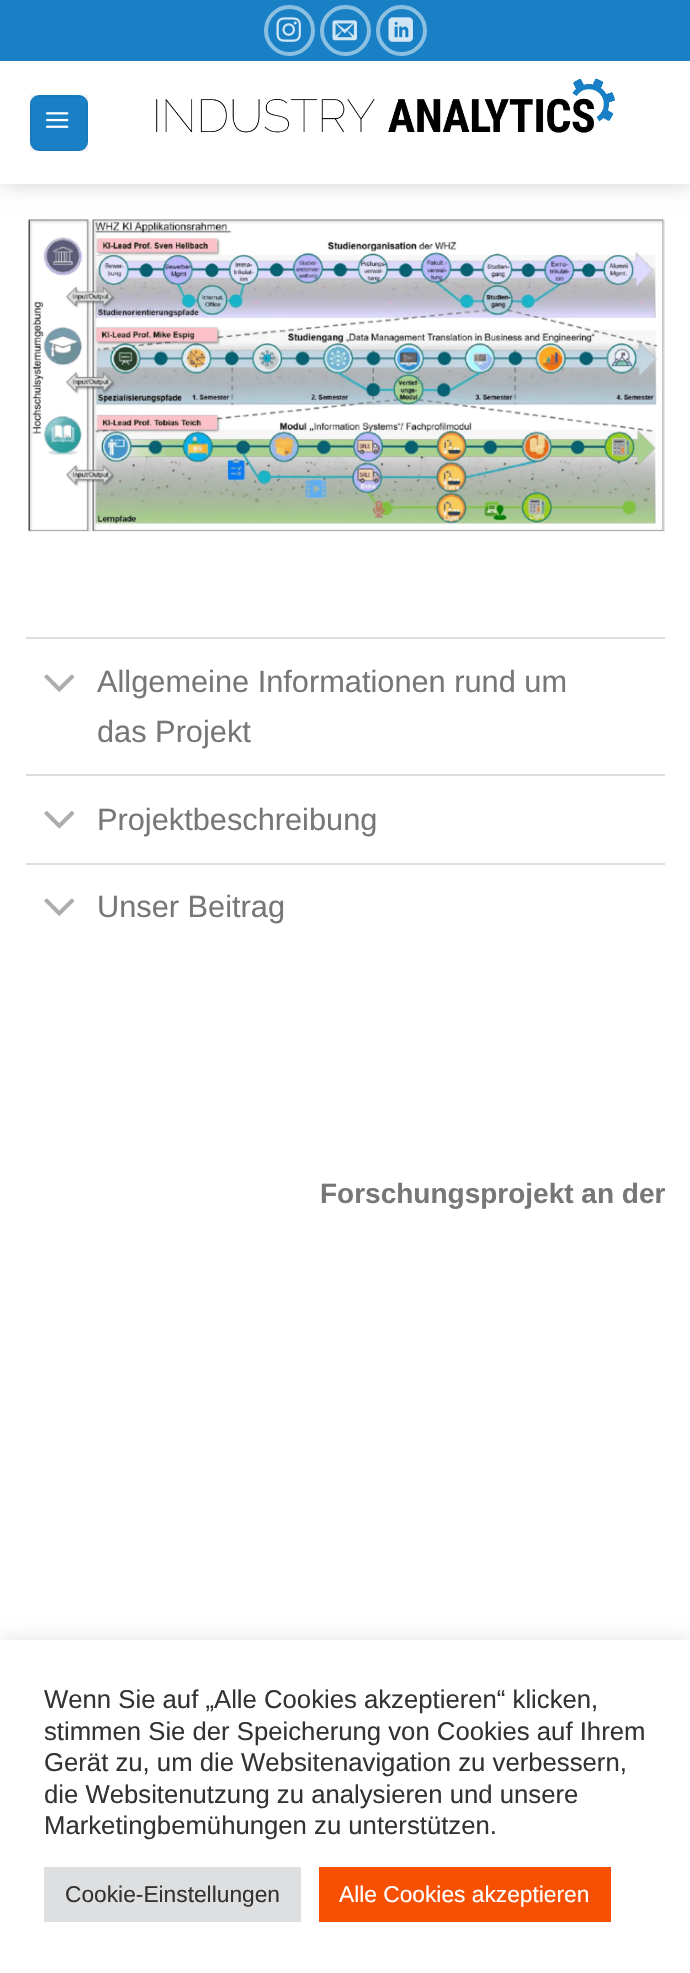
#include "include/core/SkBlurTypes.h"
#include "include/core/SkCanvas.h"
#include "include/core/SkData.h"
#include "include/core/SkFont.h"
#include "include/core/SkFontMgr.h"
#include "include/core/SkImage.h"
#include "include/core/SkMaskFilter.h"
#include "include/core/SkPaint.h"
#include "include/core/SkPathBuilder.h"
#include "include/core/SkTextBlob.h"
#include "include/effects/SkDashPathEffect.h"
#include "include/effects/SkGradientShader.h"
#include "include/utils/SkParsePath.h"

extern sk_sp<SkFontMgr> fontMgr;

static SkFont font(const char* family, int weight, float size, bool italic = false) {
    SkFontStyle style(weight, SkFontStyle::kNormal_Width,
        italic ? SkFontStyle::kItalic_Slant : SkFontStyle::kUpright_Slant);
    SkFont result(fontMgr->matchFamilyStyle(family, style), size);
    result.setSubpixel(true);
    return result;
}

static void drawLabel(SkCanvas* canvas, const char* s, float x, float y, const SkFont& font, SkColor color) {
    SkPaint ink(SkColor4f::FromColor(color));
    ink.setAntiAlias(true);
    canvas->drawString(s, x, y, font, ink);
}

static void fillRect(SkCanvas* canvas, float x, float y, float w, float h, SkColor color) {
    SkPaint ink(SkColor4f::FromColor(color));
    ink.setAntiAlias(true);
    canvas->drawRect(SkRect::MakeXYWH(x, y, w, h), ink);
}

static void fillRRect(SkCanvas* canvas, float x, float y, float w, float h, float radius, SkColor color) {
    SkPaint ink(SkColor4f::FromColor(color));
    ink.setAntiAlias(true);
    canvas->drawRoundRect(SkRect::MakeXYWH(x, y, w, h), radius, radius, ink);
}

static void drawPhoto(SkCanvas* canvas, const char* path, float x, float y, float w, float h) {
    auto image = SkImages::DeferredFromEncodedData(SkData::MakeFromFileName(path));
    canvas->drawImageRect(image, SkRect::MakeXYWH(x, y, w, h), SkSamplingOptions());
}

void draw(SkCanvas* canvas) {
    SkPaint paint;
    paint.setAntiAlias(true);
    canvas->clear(0xFFFFFFFF);
    paint.setColor(0x26000000);
    paint.setMaskFilter(SkMaskFilter::MakeBlur(kNormal_SkBlurStyle, 9));
    canvas->drawRect(SkRect::MakeXYWH(2, 2, 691, 184), paint);
    paint.setMaskFilter(nullptr);
    fillRect(canvas, 0, 61, 690, 123, 0xFFFFFFFF);
    fillRect(canvas, 0, 0, 690, 61, 0xFF1980C6);
    paint.setStroke(true);
    paint.setStrokeWidth(4);
    paint.setColor(0xFF8CC0E3);
    canvas->drawCircle(289.5f, 30.5f, 23.5f, paint);
    drawPhoto(canvas, "assets/img1.png", 276, 17, 25, 25);
    canvas->drawCircle(345.5f, 30.5f, 23.5f, paint);
    drawPhoto(canvas, "assets/img2.png", 332, 20, 25, 21);
    canvas->drawCircle(401.5f, 30.5f, 23.5f, paint);
    drawPhoto(canvas, "assets/img3.png", 388, 17, 25, 25);
    fillRRect(canvas, 30, 95, 58, 56, 9, 0xFF1980C6);
    paint.setStrokeWidth(2);
    paint.setColor(0x0D000000);
    canvas->drawRect(SkRect::MakeXYWH(31, 96, 56, 54), paint);
    drawPhoto(canvas, "assets/img4.png", 46, 112, 23, 16);
    drawPhoto(canvas, "assets/img5.png", 156, 78, 459, 55);
    drawPhoto(canvas, "assets/img6.png", 28, 219, 637, 313);
    fillRect(canvas, 26, 637, 639, 2, 0xFFDDDDDD);
    drawPhoto(canvas, "assets/img7.png", 44, 674, 31, 18);
    SkFont font1 = font("Liberation Sans", 400, 30.75f);
    drawLabel(canvas, "Allgemeine Informationen rund um", 97, 692, font1, 0xFF777777);
    drawLabel(canvas, "das Projekt", 97, 742, font1, 0xFF777777);
    fillRect(canvas, 26, 774, 639, 2, 0xFFDDDDDD);
    drawPhoto(canvas, "assets/img8.png", 44, 811, 31, 18);
    drawLabel(canvas, "Projektbeschreibung", 97, 830, font1, 0xFF777777);
    fillRect(canvas, 26, 863, 639, 2, 0xFFDDDDDD);
    drawPhoto(canvas, "assets/img7.png", 44, 898, 31, 18);
    drawLabel(canvas, "Unser Beitrag", 97, 917, font1, 0xFF777777);
    SkFont font2 = font("Liberation Sans", 700, 28);
    drawLabel(canvas, "Forschungsprojekt an der", 320, 1203, font2, 0xFF777777);
    paint.setStroke(false);
    paint.setColor(0x4DACABAB);
    paint.setMaskFilter(SkMaskFilter::MakeBlur(kNormal_SkBlurStyle, 9));
    canvas->drawRect(SkRect::MakeXYWH(0, 1638, 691, 334), paint);
    paint.setMaskFilter(nullptr);
    fillRect(canvas, 0, 1640, 690, 333, 0xFFFFFFFF);
    SkFont font3 = font("Liberation Sans", 400, 25.7f);
    drawLabel(canvas, "Wenn Sie auf „Alle Cookies akzeptieren“ klicken,", 44, 1708, font3, 0xFF333333);
    drawLabel(canvas, "stimmen Sie der Speicherung von Cookies auf Ihrem", 44, 1740, font3, 0xFF333333);
    drawLabel(canvas, "Gerät zu, um die Websitenavigation zu verbessern,", 44, 1771, font3, 0xFF333333);
    drawLabel(canvas, "die Websitenutzung zu analysieren und unsere", 44, 1803, font3, 0xFF333333);
    drawLabel(canvas, "Marketingbemühungen zu unterstützen.", 44, 1834, font3, 0xFF333333);
    fillRect(canvas, 44, 1867, 257, 55, 0xFFDEDFE0);
    SkFont font4 = font("Liberation Sans", 400, 22.75f);
    drawLabel(canvas, "Cookie-Einstellungen", 65, 1902, font4, 0xFF333333);
    fillRect(canvas, 319, 1867, 292, 55, 0xFFF75002);
    drawLabel(canvas, "Alle Cookies akzeptieren", 339, 1902, font4, 0xFFFFFFFF);
}
